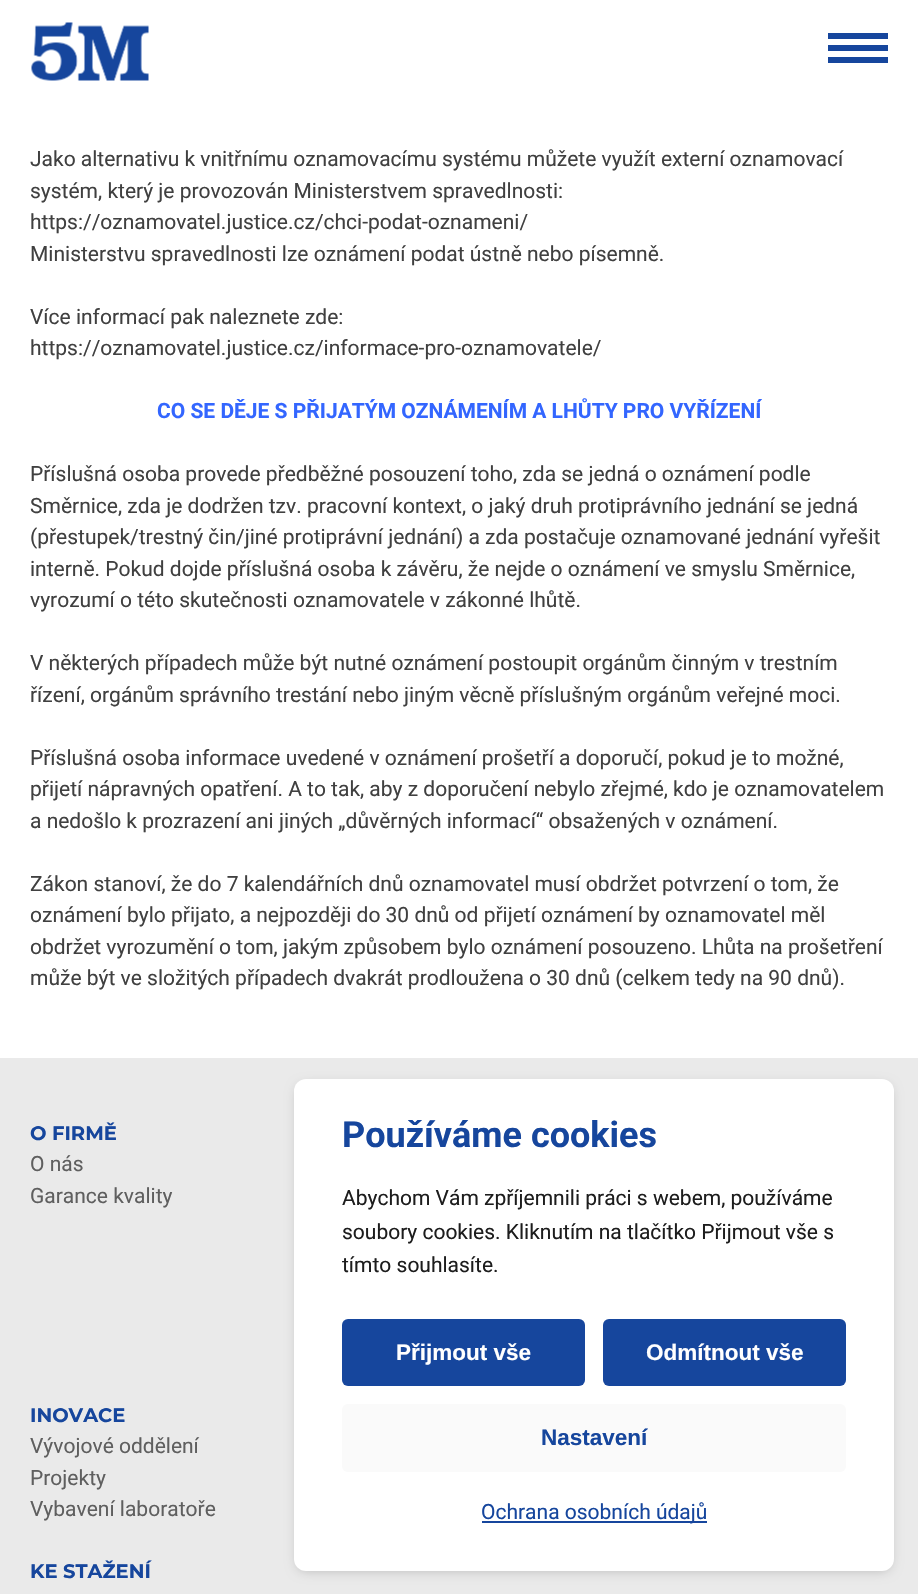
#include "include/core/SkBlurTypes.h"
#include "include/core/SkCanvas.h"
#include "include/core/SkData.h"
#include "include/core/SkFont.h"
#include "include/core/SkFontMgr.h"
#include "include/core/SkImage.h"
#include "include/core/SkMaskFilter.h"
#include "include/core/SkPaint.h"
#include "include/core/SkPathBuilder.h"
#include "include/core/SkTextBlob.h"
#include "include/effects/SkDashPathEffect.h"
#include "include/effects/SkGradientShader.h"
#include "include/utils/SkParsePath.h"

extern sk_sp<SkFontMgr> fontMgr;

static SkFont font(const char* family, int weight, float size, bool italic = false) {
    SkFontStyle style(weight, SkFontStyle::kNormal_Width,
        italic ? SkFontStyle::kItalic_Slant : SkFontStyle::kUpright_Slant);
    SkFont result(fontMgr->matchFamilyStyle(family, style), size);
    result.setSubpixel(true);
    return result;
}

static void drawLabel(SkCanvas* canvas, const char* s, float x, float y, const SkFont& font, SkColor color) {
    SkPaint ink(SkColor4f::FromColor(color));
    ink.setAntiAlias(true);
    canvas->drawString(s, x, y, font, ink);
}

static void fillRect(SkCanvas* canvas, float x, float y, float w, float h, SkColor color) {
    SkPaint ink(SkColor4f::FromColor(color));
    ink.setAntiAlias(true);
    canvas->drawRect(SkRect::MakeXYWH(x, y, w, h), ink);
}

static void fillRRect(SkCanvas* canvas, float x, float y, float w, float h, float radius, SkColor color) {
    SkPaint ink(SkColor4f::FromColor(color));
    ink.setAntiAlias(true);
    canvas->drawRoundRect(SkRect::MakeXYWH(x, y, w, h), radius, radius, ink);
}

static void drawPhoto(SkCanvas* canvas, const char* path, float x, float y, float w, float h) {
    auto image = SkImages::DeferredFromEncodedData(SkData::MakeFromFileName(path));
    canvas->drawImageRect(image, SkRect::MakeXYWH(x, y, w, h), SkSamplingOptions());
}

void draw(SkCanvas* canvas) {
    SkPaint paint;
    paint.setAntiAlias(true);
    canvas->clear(0xFFFFFFFF);
    drawPhoto(canvas, "assets/img1.png", 31, 22, 118, 59);
    fillRect(canvas, 828, 45, 60, 6, 0xFF16469D);
    fillRect(canvas, 828, 33, 60, 6, 0xFF16469D);
    fillRect(canvas, 828, 57, 60, 6, 0xFF16469D);
    SkFont font1 = font("Roboto", 400, 21);
    drawLabel(canvas, "Jako alternativu k vnitřnímu oznamovacímu systému můžete využít externí oznamovací", 30, 166, font1, 0xFF404040);
    drawLabel(canvas, "systém, který je provozován Ministerstvem spravedlnosti:", 30, 198, font1, 0xFF404040);
    drawLabel(canvas, "https://oznamovatel.justice.cz/chci-podat-oznameni/", 30, 229, font1, 0xFF404040);
    drawLabel(canvas, "Ministerstvu spravedlnosti lze oznámení podat ústně nebo písemně.", 30, 261, font1, 0xFF404040);
    drawLabel(canvas, "Více informací pak naleznete zde:", 30, 324, font1, 0xFF404040);
    drawLabel(canvas, "https://oznamovatel.justice.cz/informace-pro-oznamovatele/", 30, 355, font1, 0xFF404040);
    SkFont font2 = font("Roboto", 700, 21);
    drawLabel(canvas, "CO SE DĚJE S PŘIJATÝM OZNÁMENÍM A LHŮTY PRO VYŘÍZENÍ", 157, 418, font2, 0xFF3366FF);
    drawLabel(canvas, "Příslušná osoba provede předběžné posouzení toho, zda se jedná o oznámení podle", 30, 481, font1, 0xFF404040);
    drawLabel(canvas, "Směrnice, zda je dodržen tzv. pracovní kontext, o jaký druh protiprávního jednání se jedná", 30, 513, font1, 0xFF404040);
    drawLabel(canvas, "(přestupek/trestný čin/jiné protiprávní jednání) a zda postačuje oznamované jednání vyřešit", 30, 544, font1, 0xFF404040);
    drawLabel(canvas, "interně. Pokud dojde příslušná osoba k závěru, že nejde o oznámení ve smyslu Směrnice,", 30, 576, font1, 0xFF404040);
    drawLabel(canvas, "vyrozumí o této skutečnosti oznamovatele v zákonné lhůtě.", 30, 607, font1, 0xFF404040);
    drawLabel(canvas, "V některých případech může být nutné oznámení postoupit orgánům činným v trestním", 30, 670, font1, 0xFF404040);
    drawLabel(canvas, "řízení, orgánům správního trestání nebo jiným věcně příslušným orgánům veřejné moci.", 30, 702, font1, 0xFF404040);
    drawLabel(canvas, "Příslušná osoba informace uvedené v oznámení prošetří a doporučí, pokud je to možné,", 30, 765, font1, 0xFF404040);
    drawLabel(canvas, "přijetí nápravných opatření. A to tak, aby z doporučení nebylo zřejmé, kdo je oznamovatelem", 30, 796, font1, 0xFF404040);
    drawLabel(canvas, "a nedošlo k prozrazení ani jiných „důvěrných informací“ obsažených v oznámení.", 30, 828, font1, 0xFF404040);
    drawLabel(canvas, "Zákon stanoví, že do 7 kalendářních dnů oznamovatel musí obdržet potvrzení o tom, že", 30, 891, font1, 0xFF404040);
    drawLabel(canvas, "oznámení bylo přijato, a nejpozději do 30 dnů od přijetí oznámení by oznamovatel měl", 30, 922, font1, 0xFF404040);
    drawLabel(canvas, "obdržet vyrozumění o tom, jakým způsobem bylo oznámení posouzeno. Lhůta na prošetření", 30, 954, font1, 0xFF404040);
    drawLabel(canvas, "může být ve složitých případech dvakrát prodloužena o 30 dnů (celkem tedy na 90 dnů).", 30, 985, font1, 0xFF404040);
    fillRect(canvas, 0, 1058, 918, 536, 0xFFEAEAEA);
    SkFont font3 = font("Montserrat", 700, 19.5f);
    drawLabel(canvas, "O FIRMĚ", 30, 1140, font3, 0xFF16469D);
    drawLabel(canvas, "O nás", 30, 1171, font1, 0xFF5F5F5F);
    drawLabel(canvas, "Garance kvality", 30, 1203, font1, 0xFF5F5F5F);
    drawLabel(canvas, "INOVACE", 30, 1422, font3, 0xFF16469D);
    drawLabel(canvas, "Vývojové oddělení", 30, 1453, font1, 0xFF5F5F5F);
    drawLabel(canvas, "Projekty", 30, 1485, font1, 0xFF5F5F5F);
    drawLabel(canvas, "Vybavení laboratoře", 30, 1516, font1, 0xFF5F5F5F);
    drawLabel(canvas, "KE STAŽENÍ", 30, 1578, font3, 0xFF16469D);
    paint.setColor(0x33000000);
    paint.setMaskFilter(SkMaskFilter::MakeBlur(kNormal_SkBlurStyle, 6));
    canvas->drawRoundRect(SkRect::MakeXYWH(297, 1085, 594, 486), 9, 9, paint);
    paint.setMaskFilter(nullptr);
    fillRRect(canvas, 294, 1079, 600, 492, 12, 0xFFFFFFFF);
    SkFont font4 = font("Roboto", 700, 36);
    drawLabel(canvas, "Používáme cookies", 342, 1147, font4, 0xFF16469D);
    drawLabel(canvas, "Abychom Vám zpříjemnili práci s webem, používáme", 342, 1205, font1, 0xFF1D1D1D);
    drawLabel(canvas, "soubory cookies. Kliknutím na tlačítko Přijmout vše s", 342, 1239, font1, 0xFF1D1D1D);
    drawLabel(canvas, "tímto souhlasíte.", 342, 1272, font1, 0xFF1D1D1D);
    fillRRect(canvas, 342, 1319, 243, 67, 6, 0xFF16469D);
    SkFont font5 = font("Liberation Sans", 700, 22.5f);
    drawLabel(canvas, "Přijmout vše", 396, 1360, font5, 0xFFFFFFFF);
    fillRRect(canvas, 603, 1319, 243, 67, 6, 0xFF16469D);
    drawLabel(canvas, "Odmítnout vše", 646, 1360, font5, 0xFFFFFFFF);
    fillRRect(canvas, 342, 1404, 504, 68, 6, 0xFFFAFAFA);
    drawLabel(canvas, "Nastavení", 541, 1445, font5, 0xFF16469D);
    fillRect(canvas, 482, 1521, 225, 2, 0xFF16469D);
    drawLabel(canvas, "Ochrana osobních údajů", 481, 1519, font1, 0xFF16469D);
}
